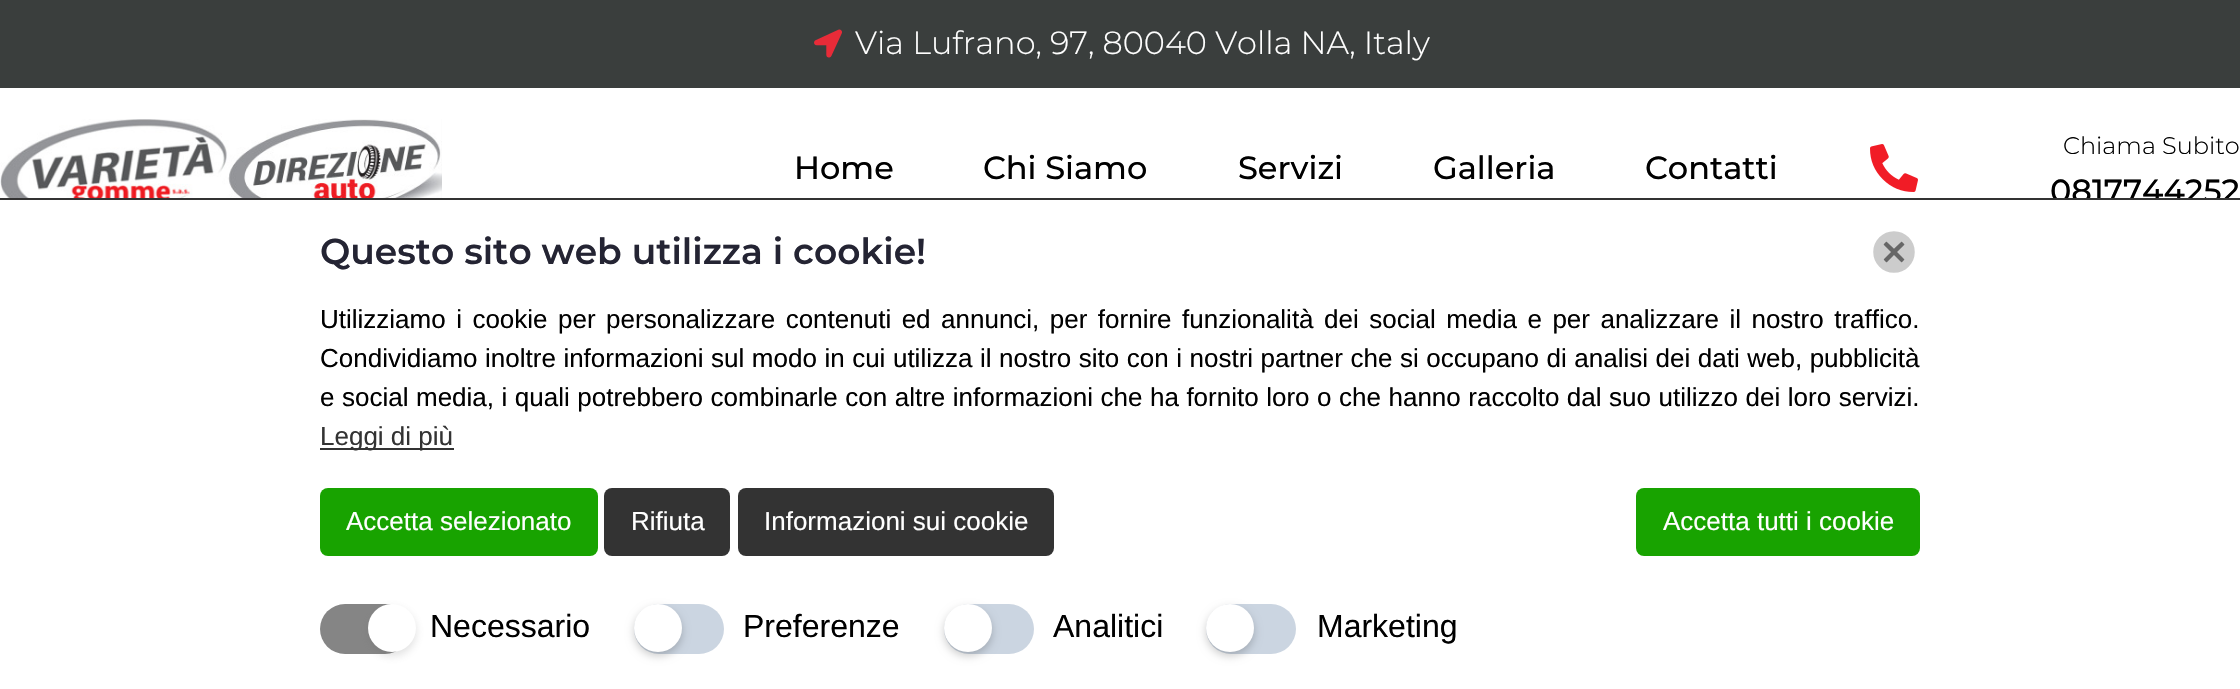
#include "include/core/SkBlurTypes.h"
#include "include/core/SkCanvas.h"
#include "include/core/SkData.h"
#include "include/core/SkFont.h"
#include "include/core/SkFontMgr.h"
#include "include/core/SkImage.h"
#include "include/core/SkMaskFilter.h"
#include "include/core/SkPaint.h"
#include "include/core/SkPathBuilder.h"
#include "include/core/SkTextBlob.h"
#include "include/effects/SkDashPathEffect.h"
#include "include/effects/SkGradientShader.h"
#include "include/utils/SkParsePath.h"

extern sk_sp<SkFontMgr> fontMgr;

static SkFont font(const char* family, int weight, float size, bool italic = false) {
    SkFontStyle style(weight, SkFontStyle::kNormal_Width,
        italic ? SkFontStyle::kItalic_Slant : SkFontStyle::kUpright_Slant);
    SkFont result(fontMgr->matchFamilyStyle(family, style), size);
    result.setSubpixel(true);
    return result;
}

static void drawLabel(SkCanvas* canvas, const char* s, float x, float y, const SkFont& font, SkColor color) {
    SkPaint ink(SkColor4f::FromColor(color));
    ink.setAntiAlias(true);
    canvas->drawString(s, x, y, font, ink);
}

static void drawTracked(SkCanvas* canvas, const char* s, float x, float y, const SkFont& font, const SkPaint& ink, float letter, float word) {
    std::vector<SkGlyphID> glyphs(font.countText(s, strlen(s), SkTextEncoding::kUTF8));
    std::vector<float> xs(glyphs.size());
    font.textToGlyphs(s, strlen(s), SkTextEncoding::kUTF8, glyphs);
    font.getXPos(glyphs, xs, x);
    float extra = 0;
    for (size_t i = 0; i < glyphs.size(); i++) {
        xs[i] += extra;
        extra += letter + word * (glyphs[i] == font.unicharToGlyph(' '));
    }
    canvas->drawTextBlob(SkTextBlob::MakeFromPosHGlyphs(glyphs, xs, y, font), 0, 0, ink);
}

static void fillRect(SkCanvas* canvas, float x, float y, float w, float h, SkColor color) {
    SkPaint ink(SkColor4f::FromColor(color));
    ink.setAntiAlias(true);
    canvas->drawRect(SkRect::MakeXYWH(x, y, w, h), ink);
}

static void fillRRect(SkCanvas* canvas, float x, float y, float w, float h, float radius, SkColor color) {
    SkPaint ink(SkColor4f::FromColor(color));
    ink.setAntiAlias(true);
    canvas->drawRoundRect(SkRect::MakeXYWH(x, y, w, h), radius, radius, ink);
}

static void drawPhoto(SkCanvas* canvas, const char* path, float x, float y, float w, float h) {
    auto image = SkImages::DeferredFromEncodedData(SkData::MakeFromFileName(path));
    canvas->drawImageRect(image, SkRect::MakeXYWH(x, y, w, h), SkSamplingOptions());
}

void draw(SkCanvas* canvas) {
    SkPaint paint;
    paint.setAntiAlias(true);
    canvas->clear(0xFFFFFFFF);
    fillRect(canvas, 0, 0, 2240, 88, 0xFF3A3E3D);
    drawPhoto(canvas, "assets/img1.png", 814, 29, 28, 29);
    SkFont font1 = font("Montserrat", 300, 32);
    drawLabel(canvas, "Via Lufrano, 97, 80040 Volla NA, Italy", 855, 54, font1, 0xFFFFFFFF);
    drawPhoto(canvas, "assets/img2.png", 0, 119, 442, 79);
    SkFont font2 = font("Montserrat", 500, 32);
    drawLabel(canvas, "Home", 794, 179, font2, 0xFF000000);
    drawLabel(canvas, "Chi Siamo", 983, 179, font2, 0xFF000000);
    drawLabel(canvas, "Servizi", 1238, 179, font2, 0xFF000000);
    drawLabel(canvas, "Galleria", 1433, 179, font2, 0xFF000000);
    drawLabel(canvas, "Contatti", 1645, 179, font2, 0xFF000000);
    drawPhoto(canvas, "assets/img3.png", 1870, 144, 48, 48);
    SkFont font3 = font("Montserrat", 300, 24);
    drawLabel(canvas, "Chiama Subito", 2063, 154, font3, 0xFF000000);
    drawLabel(canvas, "0817744252", 2050, 202, font2, 0xFF000000);
    fillRect(canvas, 2054, 200, 185, 3, 0xFFFFFFFF);
    fillRect(canvas, 0, 198, 2240, 2, 0xFF333333);
    SkFont font4 = font("Montserrat", 600, 36);
    drawLabel(canvas, "Questo sito web utilizza i cookie!", 320, 264, font4, 0xFF242433);
    drawPhoto(canvas, "assets/img4.png", 1873, 231, 42, 42);
    SkFont font5 = font("Liberation Sans", 400, 26);
    paint.setColor(0xFF000000);
    drawTracked(canvas, "Utilizziamo i cookie per personalizzare contenuti ed annunci, per fornire funzionalità dei social media e per analizzare il nostro traffico.", 320, 328, font5, paint, 0, 3.25f);
    drawTracked(canvas, "Condividiamo inoltre informazioni sul modo in cui utilizza il nostro sito con i nostri partner che si occupano di analisi dei dati web, pubblicità", 320, 367, font5, paint, 0, 0.3f);
    drawTracked(canvas, "e social media, i quali potrebbero combinarle con altre informazioni che ha fornito loro o che hanno raccolto dal suo utilizzo dei loro servizi.", 320, 406, font5, paint, 0, 0.3f);
    fillRect(canvas, 320, 448, 134, 2, 0xFF333333);
    drawLabel(canvas, "Leggi di più", 320, 445, font5, 0xFF333333);
    fillRRect(canvas, 320, 488, 278, 68, 8, 0xFF18A300);
    drawLabel(canvas, "Accetta selezionato", 346, 530, font5, 0xFFFFFFFF);
    fillRRect(canvas, 604, 488, 126, 68, 8, 0xFF333333);
    drawLabel(canvas, "Rifiuta", 631, 530, font5, 0xFFFFFFFF);
    fillRRect(canvas, 738, 488, 316, 68, 8, 0xFF333333);
    drawLabel(canvas, "Informazioni sui cookie", 764, 530, font5, 0xFFFFFFFF);
    fillRRect(canvas, 1636, 488, 284, 68, 8, 0xFF18A300);
    drawLabel(canvas, "Accetta tutti i cookie", 1663, 530, font5, 0xFFFFFFFF);
    fillRRect(canvas, 320, 604, 90, 50, 25, 0xFF858585);
    paint.setColor(0x33666666);
    paint.setMaskFilter(SkMaskFilter::MakeBlur(kNormal_SkBlurStyle, 4));
    canvas->drawRoundRect(SkRect::MakeXYWH(368, 608, 48, 48), 24, 24, paint);
    paint.setMaskFilter(nullptr);
    paint.setColor(0xFFFFFFFF);
    canvas->drawCircle(392, 628, 24, paint);
    SkFont font6 = font("Liberation Sans", 400, 32);
    drawLabel(canvas, "Necessario", 430, 637, font6, 0xFF000000);
    fillRRect(canvas, 634, 604, 90, 50, 25, 0xFFCBD5E1);
    paint.setColor(0x33000000);
    paint.setMaskFilter(SkMaskFilter::MakeBlur(kNormal_SkBlurStyle, 4));
    canvas->drawRoundRect(SkRect::MakeXYWH(634, 608, 48, 48), 24, 24, paint);
    paint.setMaskFilter(nullptr);
    paint.setColor(0xFFFFFFFF);
    canvas->drawCircle(658, 628, 24, paint);
    drawLabel(canvas, "Preferenze", 743, 637, font6, 0xFF000000);
    fillRRect(canvas, 944, 604, 90, 50, 25, 0xFFCBD5E1);
    paint.setColor(0x33000000);
    paint.setMaskFilter(SkMaskFilter::MakeBlur(kNormal_SkBlurStyle, 4));
    canvas->drawRoundRect(SkRect::MakeXYWH(944, 608, 48, 48), 24, 24, paint);
    paint.setMaskFilter(nullptr);
    paint.setColor(0xFFFFFFFF);
    canvas->drawCircle(968, 628, 24, paint);
    drawLabel(canvas, "Analitici", 1053, 637, font6, 0xFF000000);
    fillRRect(canvas, 1206, 604, 90, 50, 25, 0xFFCBD5E1);
    paint.setColor(0x33000000);
    paint.setMaskFilter(SkMaskFilter::MakeBlur(kNormal_SkBlurStyle, 4));
    canvas->drawRoundRect(SkRect::MakeXYWH(1206, 608, 48, 48), 24, 24, paint);
    paint.setMaskFilter(nullptr);
    paint.setColor(0xFFFFFFFF);
    canvas->drawCircle(1230, 628, 24, paint);
    drawLabel(canvas, "Marketing", 1317, 637, font6, 0xFF000000);
}
